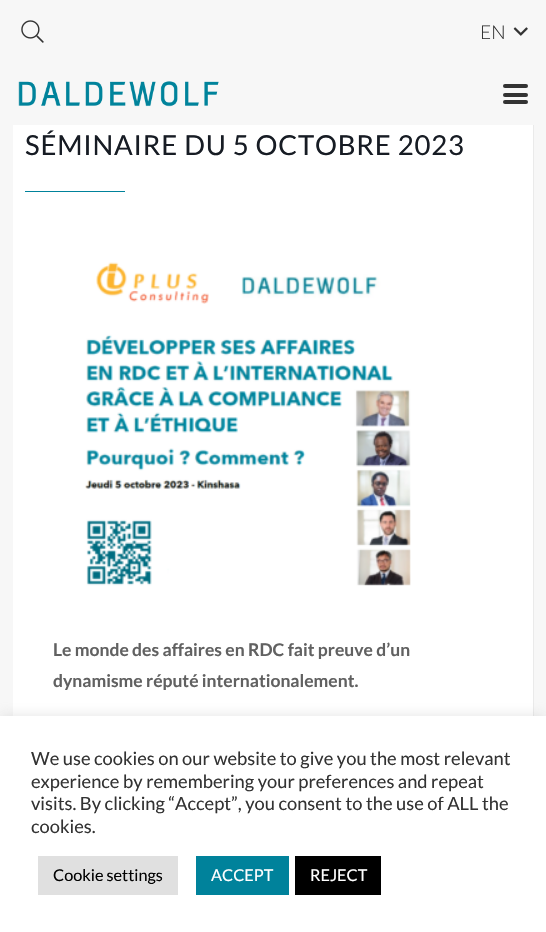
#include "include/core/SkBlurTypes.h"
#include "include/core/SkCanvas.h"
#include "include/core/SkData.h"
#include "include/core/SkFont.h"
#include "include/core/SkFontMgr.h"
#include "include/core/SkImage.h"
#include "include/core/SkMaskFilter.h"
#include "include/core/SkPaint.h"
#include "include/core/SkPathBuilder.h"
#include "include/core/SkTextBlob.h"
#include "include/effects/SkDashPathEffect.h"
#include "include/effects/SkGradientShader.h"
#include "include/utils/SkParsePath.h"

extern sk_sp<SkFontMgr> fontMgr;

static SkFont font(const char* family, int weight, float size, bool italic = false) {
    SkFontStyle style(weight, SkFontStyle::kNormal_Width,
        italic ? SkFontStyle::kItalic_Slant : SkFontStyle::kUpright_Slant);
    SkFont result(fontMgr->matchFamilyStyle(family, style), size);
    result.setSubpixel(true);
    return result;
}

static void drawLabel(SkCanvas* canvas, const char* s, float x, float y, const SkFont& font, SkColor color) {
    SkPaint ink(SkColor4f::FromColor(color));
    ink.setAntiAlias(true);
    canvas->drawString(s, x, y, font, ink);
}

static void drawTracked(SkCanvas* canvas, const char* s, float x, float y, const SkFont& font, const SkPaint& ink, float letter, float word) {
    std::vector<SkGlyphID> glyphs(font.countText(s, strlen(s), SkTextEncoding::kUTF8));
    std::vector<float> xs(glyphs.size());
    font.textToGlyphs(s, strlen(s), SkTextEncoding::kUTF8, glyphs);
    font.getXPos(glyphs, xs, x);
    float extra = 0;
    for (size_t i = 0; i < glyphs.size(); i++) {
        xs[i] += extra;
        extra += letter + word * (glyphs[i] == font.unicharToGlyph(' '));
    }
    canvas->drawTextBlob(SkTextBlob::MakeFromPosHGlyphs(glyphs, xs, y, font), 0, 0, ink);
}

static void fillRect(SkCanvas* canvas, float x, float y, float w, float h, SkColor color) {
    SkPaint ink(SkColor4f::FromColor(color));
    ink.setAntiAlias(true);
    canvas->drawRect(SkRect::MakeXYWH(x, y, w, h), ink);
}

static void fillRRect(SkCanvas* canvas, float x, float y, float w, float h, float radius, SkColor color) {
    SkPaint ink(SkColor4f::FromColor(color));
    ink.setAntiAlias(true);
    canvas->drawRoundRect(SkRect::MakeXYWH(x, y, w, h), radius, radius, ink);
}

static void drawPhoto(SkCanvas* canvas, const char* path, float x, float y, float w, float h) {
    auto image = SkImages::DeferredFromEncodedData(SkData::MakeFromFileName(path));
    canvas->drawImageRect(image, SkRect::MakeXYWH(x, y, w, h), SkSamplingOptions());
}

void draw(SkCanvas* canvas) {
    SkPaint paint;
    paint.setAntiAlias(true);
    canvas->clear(0xFFFFFFFF);
    fillRect(canvas, 534, 125, 12, 591, 0xFFF7F7F7);
    fillRect(canvas, 0, 125, 13, 591, 0xFFF7F7F7);
    fillRect(canvas, 0, 0, 546, 125, 0xFFF7F7F7);
    drawPhoto(canvas, "assets/img1.png", 21, 20, 23, 23);
    SkFont font1 = font("Lato", 300, 19);
    drawLabel(canvas, "EN", 480, 39, font1, 0xFF333333);
    drawPhoto(canvas, "assets/img2.png", 513, 27, 15, 9);
    drawPhoto(canvas, "assets/img3.png", 18, 81, 201, 26);
    fillRRect(canvas, 503, 93, 25, 4, 2, 0xFF333333);
    fillRRect(canvas, 503, 84, 25, 4, 2, 0xFF333333);
    fillRRect(canvas, 503, 100, 25, 4, 2, 0xFF333333);
    fillRect(canvas, 533, 125, 1, 591, 0xFFEAEAEA);
    SkFont font2 = font("Lato", 400, 27.5f);
    paint.setColor(0xFF171C24);
    drawTracked(canvas, "SÉMINAIRE DU 5 OCTOBRE 2023", 25, 155, font2, paint, 0.8f, 0);
    fillRect(canvas, 25, 191, 100, 1, 0xFF00829B);
    drawPhoto(canvas, "assets/img4.png", 85, 262, 326, 324);
    SkFont font3 = font("Lato", 700, 17.5f);
    drawLabel(canvas, "Le monde des affaires en RDC fait preuve d’un", 53, 656, font3, 0xFF616161);
    drawLabel(canvas, "dynamisme réputé internationalement.", 53, 687, font3, 0xFF616161);
    paint.setColor(0x4DACABAB);
    paint.setMaskFilter(SkMaskFilter::MakeBlur(kNormal_SkBlurStyle, 6));
    canvas->drawRect(SkRect::MakeXYWH(0, 715, 546, 216), paint);
    paint.setMaskFilter(nullptr);
    fillRect(canvas, 0, 716, 546, 216, 0xFFFFFFFF);
    SkFont font4 = font("Lato", 400, 18.3f);
    drawLabel(canvas, "We use cookies on our website to give you the most relevant", 31, 765, font4, 0xFF333333);
    drawLabel(canvas, "experience by remembering your preferences and repeat", 31, 788, font4, 0xFF333333);
    drawLabel(canvas, "visits. By clicking “Accept”, you consent to the use of ALL the", 31, 810, font4, 0xFF333333);
    drawLabel(canvas, "cookies.", 31, 833, font4, 0xFF333333);
    fillRect(canvas, 38, 856, 140, 39, 0xFFE0E0E0);
    SkFont font5 = font("Lato", 400, 16.25f);
    drawLabel(canvas, "Cookie settings", 53, 881, font5, 0xFF020202);
    fillRect(canvas, 196, 856, 93, 39, 0xFF00829B);
    drawLabel(canvas, "ACCEPT", 211, 881, font5, 0xFFFFFFFF);
    fillRect(canvas, 295, 856, 86, 39, 0xFF000000);
    drawLabel(canvas, "REJECT", 310, 881, font5, 0xFFFFFFFF);
}
